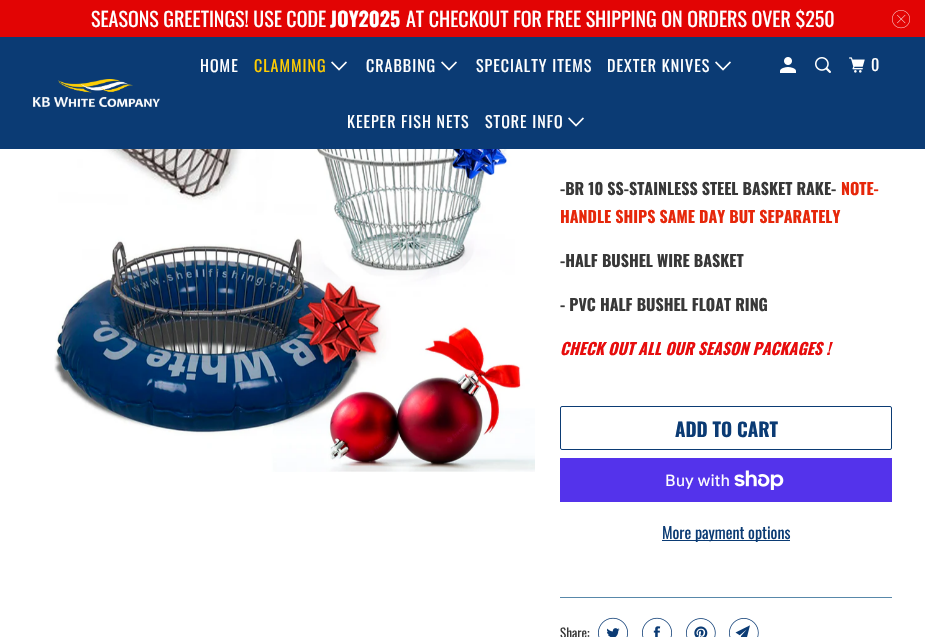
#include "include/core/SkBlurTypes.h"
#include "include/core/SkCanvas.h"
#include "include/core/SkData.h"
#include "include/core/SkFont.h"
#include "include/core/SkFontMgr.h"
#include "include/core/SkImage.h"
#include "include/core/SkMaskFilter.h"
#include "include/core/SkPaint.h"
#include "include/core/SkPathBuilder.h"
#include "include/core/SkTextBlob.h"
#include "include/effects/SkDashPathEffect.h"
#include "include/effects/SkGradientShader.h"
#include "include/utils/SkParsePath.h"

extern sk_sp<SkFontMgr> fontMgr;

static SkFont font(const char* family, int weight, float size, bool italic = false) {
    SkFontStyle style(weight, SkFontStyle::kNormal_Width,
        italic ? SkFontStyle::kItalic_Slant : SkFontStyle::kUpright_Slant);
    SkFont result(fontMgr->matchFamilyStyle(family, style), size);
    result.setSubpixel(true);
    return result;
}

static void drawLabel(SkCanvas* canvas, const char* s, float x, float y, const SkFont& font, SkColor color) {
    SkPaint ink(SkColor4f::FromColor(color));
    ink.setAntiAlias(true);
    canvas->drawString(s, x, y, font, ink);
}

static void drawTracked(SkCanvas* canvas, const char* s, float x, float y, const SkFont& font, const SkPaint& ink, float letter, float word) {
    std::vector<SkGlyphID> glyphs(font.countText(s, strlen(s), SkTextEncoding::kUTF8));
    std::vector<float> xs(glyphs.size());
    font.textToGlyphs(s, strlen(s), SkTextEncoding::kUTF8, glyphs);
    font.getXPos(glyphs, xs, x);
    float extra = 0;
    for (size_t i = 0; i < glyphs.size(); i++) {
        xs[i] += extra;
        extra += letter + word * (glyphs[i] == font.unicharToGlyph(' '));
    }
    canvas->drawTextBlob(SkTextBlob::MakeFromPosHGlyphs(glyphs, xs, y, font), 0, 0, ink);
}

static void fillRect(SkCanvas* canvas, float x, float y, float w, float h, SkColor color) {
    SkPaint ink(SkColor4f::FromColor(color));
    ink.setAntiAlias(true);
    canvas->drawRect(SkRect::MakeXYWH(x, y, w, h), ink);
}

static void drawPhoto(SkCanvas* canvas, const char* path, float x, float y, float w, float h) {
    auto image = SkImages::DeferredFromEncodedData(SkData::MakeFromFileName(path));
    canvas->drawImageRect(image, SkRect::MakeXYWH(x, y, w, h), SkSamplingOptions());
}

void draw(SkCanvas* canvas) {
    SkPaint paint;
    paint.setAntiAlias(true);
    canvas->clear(0xFFFFFFFF);
    fillRect(canvas, 0, 0, 925, 37, 0xFFE20404);
    SkFont font1 = font("Oswald", 400, 20);
    drawLabel(canvas, "SEASONS GREETINGS! USE CODE", 91, 27, font1, 0xFFFFFFFF);
    SkFont font2 = font("Oswald", 700, 20);
    drawLabel(canvas, "JOY2025", 330, 27, font2, 0xFFFFFFFF);
    drawLabel(canvas, "AT CHECKOUT FOR FREE SHIPPING ON ORDERS OVER $250", 406, 27, font1, 0xFFFFFFFF);
    drawPhoto(canvas, "assets/img1.png", 892, 10, 18, 19);
    fillRect(canvas, 0, 37, 925, 112, 0xFF0B3B74);
    drawPhoto(canvas, "assets/img2.png", 33, 79, 127, 28);
    SkFont font3 = font("Oswald", 400, 16);
    paint.setColor(0xFFFFFFFF);
    drawTracked(canvas, "HOME", 200, 72, font3, paint, 1, 0);
    paint.setColor(0xFFFFCC02);
    drawTracked(canvas, "CLAMMING", 254, 72, font3, paint, 1, 0);
    drawPhoto(canvas, "assets/img3.png", 331, 61, 16, 10);
    paint.setColor(0xFFFFFFFF);
    drawTracked(canvas, "CRABBING", 366, 72, font3, paint, 1, 0);
    drawPhoto(canvas, "assets/img3.png", 441, 61, 16, 10);
    drawTracked(canvas, "SPECIALTY ITEMS", 476, 72, font3, paint, 1, 0);
    drawTracked(canvas, "DEXTER KNIVES", 607, 72, font3, paint, 1, 0);
    drawPhoto(canvas, "assets/img3.png", 715, 61, 16, 10);
    drawTracked(canvas, "KEEPER FISH NETS", 347, 128, font3, paint, 1, 0);
    drawTracked(canvas, "STORE INFO", 485, 128, font3, paint, 1, 0);
    drawPhoto(canvas, "assets/img3.png", 568, 117, 16, 10);
    drawPhoto(canvas, "assets/img4.png", 780, 57, 16, 16);
    drawPhoto(canvas, "assets/img5.png", 815, 57, 16, 16);
    drawPhoto(canvas, "assets/img6.png", 849, 57, 16, 16);
    drawTracked(canvas, "0", 871, 71, font3, paint, 1, 0);
    drawPhoto(canvas, "assets/img7.png", 54, 149, 481, 323);
    SkFont font4 = font("Oswald", 700, 16);
    drawLabel(canvas, "-BR 10 SS-STAINLESS STEEL BASKET RAKE-", 560, 195, font4, 0xFF383838);
    drawLabel(canvas, "NOTE-", 841, 195, font4, 0xFFE6270A);
    drawLabel(canvas, "HANDLE SHIPS SAME DAY BUT SEPARATELY", 560, 223, font4, 0xFFE6270A);
    drawLabel(canvas, "-HALF BUSHEL WIRE BASKET", 560, 267, font4, 0xFF383838);
    drawLabel(canvas, "- PVC HALF BUSHEL FLOAT RING", 560, 311, font4, 0xFF383838);
    SkFont font5 = font("Oswald", 700, 16, true);
    drawLabel(canvas, "CHECK OUT ALL OUR SEASON PACKAGES !", 560, 355, font5, 0xFFE70D0D);
    paint.setStroke(true);
    paint.setStrokeWidth(1);
    paint.setColor(0xFF0B3B74);
    canvas->drawRoundRect(SkRect::MakeXYWH(560.5f, 406.5f, 331, 43), 1.5f, 1.5f, paint);
    SkFont font6 = font("Oswald", 700, 19);
    drawLabel(canvas, "ADD TO CART", 675, 437, font6, 0xFF0B3B74);
    fillRect(canvas, 560, 458, 332, 44, 0xFF5433EB);
    SkFont font7 = font("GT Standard", 400, 16);
    drawLabel(canvas, "Buy with", 665, 486, font7, 0xFFFFFFFF);
    drawPhoto(canvas, "assets/img8.png", 734, 470, 50, 20);
    fillRect(canvas, 662, 540, 128, 1, 0xFF0B3B74);
    drawLabel(canvas, "More payment options", 662, 539, font3, 0xFF0B3B74);
    fillRect(canvas, 560, 597, 332, 1, 0xFF5888AA);
    SkFont font8 = font("Oswald", 400, 13);
    drawLabel(canvas, "Share:", 560, 638, font8, 0xFF383838);
    drawPhoto(canvas, "assets/img9.png", 598, 617, 30, 20);
    drawPhoto(canvas, "assets/img10.png", 642, 617, 30, 20);
    drawPhoto(canvas, "assets/img11.png", 686, 618, 30, 19);
    drawPhoto(canvas, "assets/img12.png", 729, 618, 30, 19);
}
